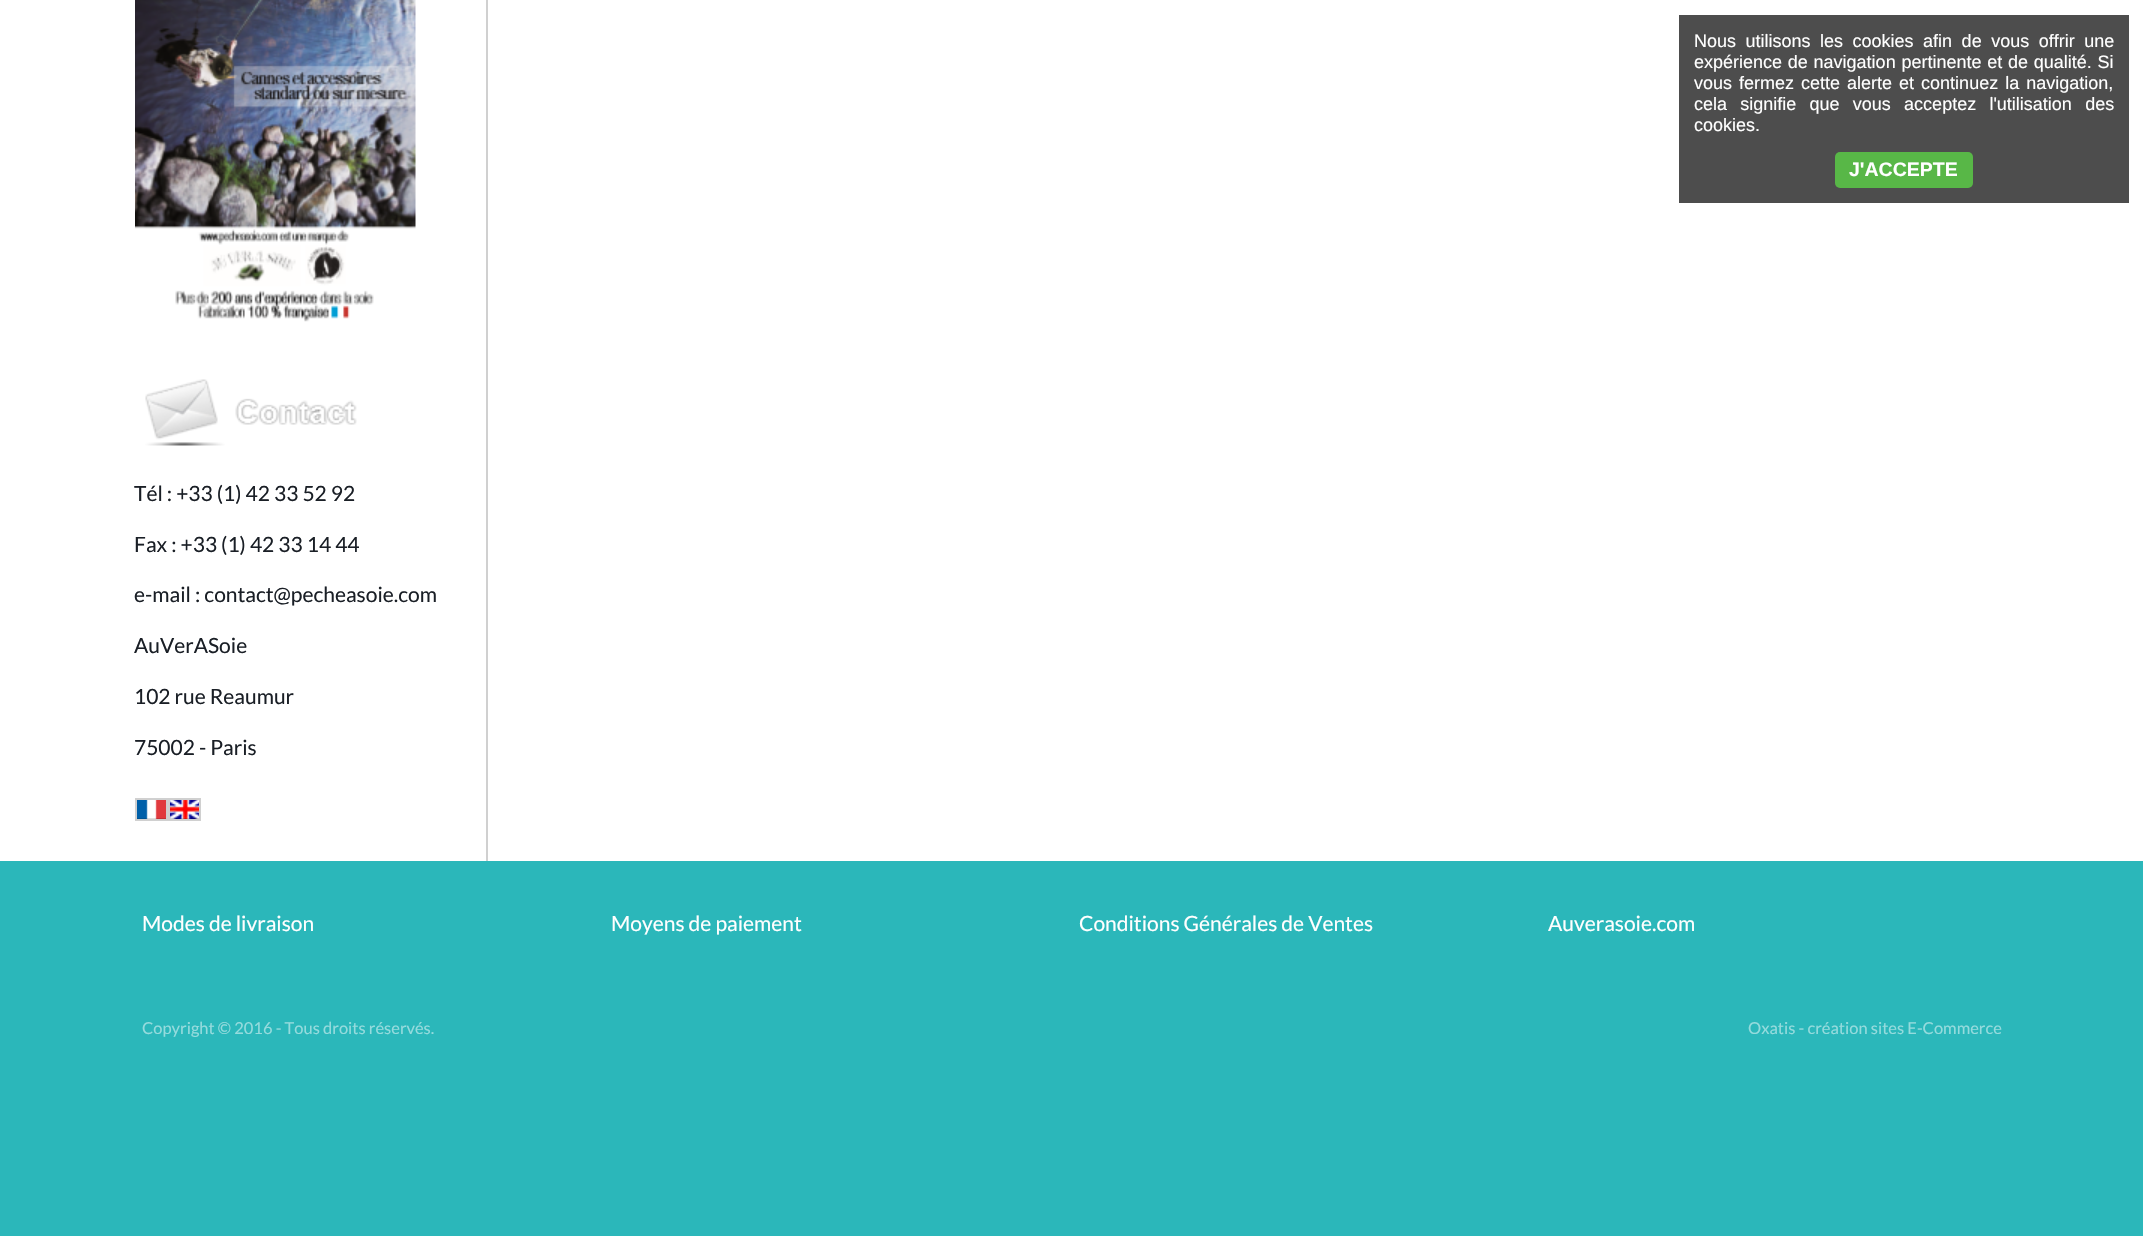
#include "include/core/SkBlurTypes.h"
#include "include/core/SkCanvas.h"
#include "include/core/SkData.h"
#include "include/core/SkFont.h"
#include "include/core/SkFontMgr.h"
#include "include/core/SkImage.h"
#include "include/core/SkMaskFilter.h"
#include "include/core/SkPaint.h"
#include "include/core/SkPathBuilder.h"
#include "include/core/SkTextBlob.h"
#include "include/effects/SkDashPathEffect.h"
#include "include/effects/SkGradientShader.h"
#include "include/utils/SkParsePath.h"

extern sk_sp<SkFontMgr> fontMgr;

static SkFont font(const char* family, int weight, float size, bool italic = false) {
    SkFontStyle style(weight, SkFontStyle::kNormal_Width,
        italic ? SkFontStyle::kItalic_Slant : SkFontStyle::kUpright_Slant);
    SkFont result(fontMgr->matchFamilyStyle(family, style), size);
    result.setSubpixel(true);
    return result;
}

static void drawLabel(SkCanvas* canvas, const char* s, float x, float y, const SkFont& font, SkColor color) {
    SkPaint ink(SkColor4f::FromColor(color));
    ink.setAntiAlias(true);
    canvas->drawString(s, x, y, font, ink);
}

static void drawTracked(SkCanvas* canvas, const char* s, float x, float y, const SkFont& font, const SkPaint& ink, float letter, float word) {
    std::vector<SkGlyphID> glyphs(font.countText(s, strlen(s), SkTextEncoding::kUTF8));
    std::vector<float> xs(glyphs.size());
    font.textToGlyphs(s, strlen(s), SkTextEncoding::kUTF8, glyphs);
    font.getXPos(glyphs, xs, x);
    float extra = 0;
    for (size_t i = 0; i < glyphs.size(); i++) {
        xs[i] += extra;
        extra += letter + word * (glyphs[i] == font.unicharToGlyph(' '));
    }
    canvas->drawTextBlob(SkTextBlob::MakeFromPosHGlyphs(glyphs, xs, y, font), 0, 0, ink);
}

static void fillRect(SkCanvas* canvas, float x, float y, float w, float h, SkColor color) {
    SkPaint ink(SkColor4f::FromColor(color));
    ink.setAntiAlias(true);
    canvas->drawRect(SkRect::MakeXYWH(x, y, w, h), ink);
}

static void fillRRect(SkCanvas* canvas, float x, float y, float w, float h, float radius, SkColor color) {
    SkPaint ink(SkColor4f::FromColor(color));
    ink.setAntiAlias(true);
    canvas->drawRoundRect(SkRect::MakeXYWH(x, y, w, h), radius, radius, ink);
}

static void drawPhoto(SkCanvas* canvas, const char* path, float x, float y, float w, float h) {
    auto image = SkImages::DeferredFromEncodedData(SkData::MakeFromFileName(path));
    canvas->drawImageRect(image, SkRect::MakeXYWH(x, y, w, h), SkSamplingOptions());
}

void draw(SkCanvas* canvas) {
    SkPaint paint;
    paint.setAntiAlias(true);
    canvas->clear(0xFFFFFFFF);
    fillRect(canvas, 1679, 15, 450, 188, 0xFF4D4D4D);
    SkFont font1 = font("Liberation Sans", 400, 18);
    paint.setColor(0xFFFFFFFF);
    drawTracked(canvas, "Nous utilisons les cookies afin de vous offrir une", 1694, 47, font1, paint, 0, 4.5f);
    drawTracked(canvas, "expérience de navigation pertinente et de qualité. Si", 1694, 68, font1, paint, 0, 0.75f);
    drawTracked(canvas, "vous fermez cette alerte et continuez la navigation,", 1694, 89, font1, paint, 0, 2);
    drawTracked(canvas, "cela signifie que vous acceptez l'utilisation des", 1694, 110, font1, paint, 0, 8.25f);
    drawLabel(canvas, "cookies.", 1694, 131, font1, 0xFFFFFFFF);
    fillRRect(canvas, 1835, 152, 138, 36, 5, 0xFF58B747);
    SkFont font2 = font("Liberation Sans", 700, 19.5f);
    drawLabel(canvas, "J'ACCEPTE", 1849, 176, font2, 0xFFFFFFFF);
    fillRect(canvas, 486, 0, 2, 861, 0xFFD0D0D0);
    drawPhoto(canvas, "assets/img1.png", 135, 0, 281, 322);
    drawPhoto(canvas, "assets/img2.png", 145, 379, 212, 67);
    SkFont font3 = font("Lato", 400, 21);
    drawLabel(canvas, "Tél : +33 (1) 42 33 52 92", 134, 501, font3, 0xFF1A1F26);
    drawLabel(canvas, "Fax : +33 (1) 42 33 14 44", 134, 552, font3, 0xFF1A1F26);
    drawLabel(canvas, "e-mail : contact@pecheasoie.com", 134, 602, font3, 0xFF1A1F26);
    drawLabel(canvas, "AuVerASoie", 134, 653, font3, 0xFF1A1F26);
    drawLabel(canvas, "102 rue Reaumur", 134, 704, font3, 0xFF1A1F26);
    drawLabel(canvas, "75002 - Paris", 134, 755, font3, 0xFF1A1F26);
    drawPhoto(canvas, "assets/img3.png", 137, 800, 29, 19);
    paint.setStroke(true);
    paint.setStrokeWidth(2);
    paint.setColor(0xFFD0D0D0);
    canvas->drawRect(SkRect::MakeXYWH(136, 799, 31, 21), paint);
    drawPhoto(canvas, "assets/img4.png", 170, 800, 29, 19);
    canvas->drawRect(SkRect::MakeXYWH(169, 799, 31, 21), paint);
    fillRect(canvas, 0, 861, 2143, 375, 0xFF2BB7BA);
    drawLabel(canvas, "Modes de livraison", 142, 931, font3, 0xFFFFFFFF);
    drawLabel(canvas, "Moyens de paiement", 611, 931, font3, 0xFFFFFFFF);
    drawLabel(canvas, "Conditions Générales de Ventes", 1079, 931, font3, 0xFFFFFFFF);
    drawLabel(canvas, "Auverasoie.com", 1548, 931, font3, 0xFFFFFFFF);
    SkFont font4 = font("Lato", 400, 16.5f);
    drawLabel(canvas, "Copyright © 2016 - Tous droits réservés.", 142, 1034, font4, 0xFF95DBDD);
    drawLabel(canvas, "Oxatis - création sites E-Commerce", 1748, 1034, font4, 0xFF95DBDD);
}
